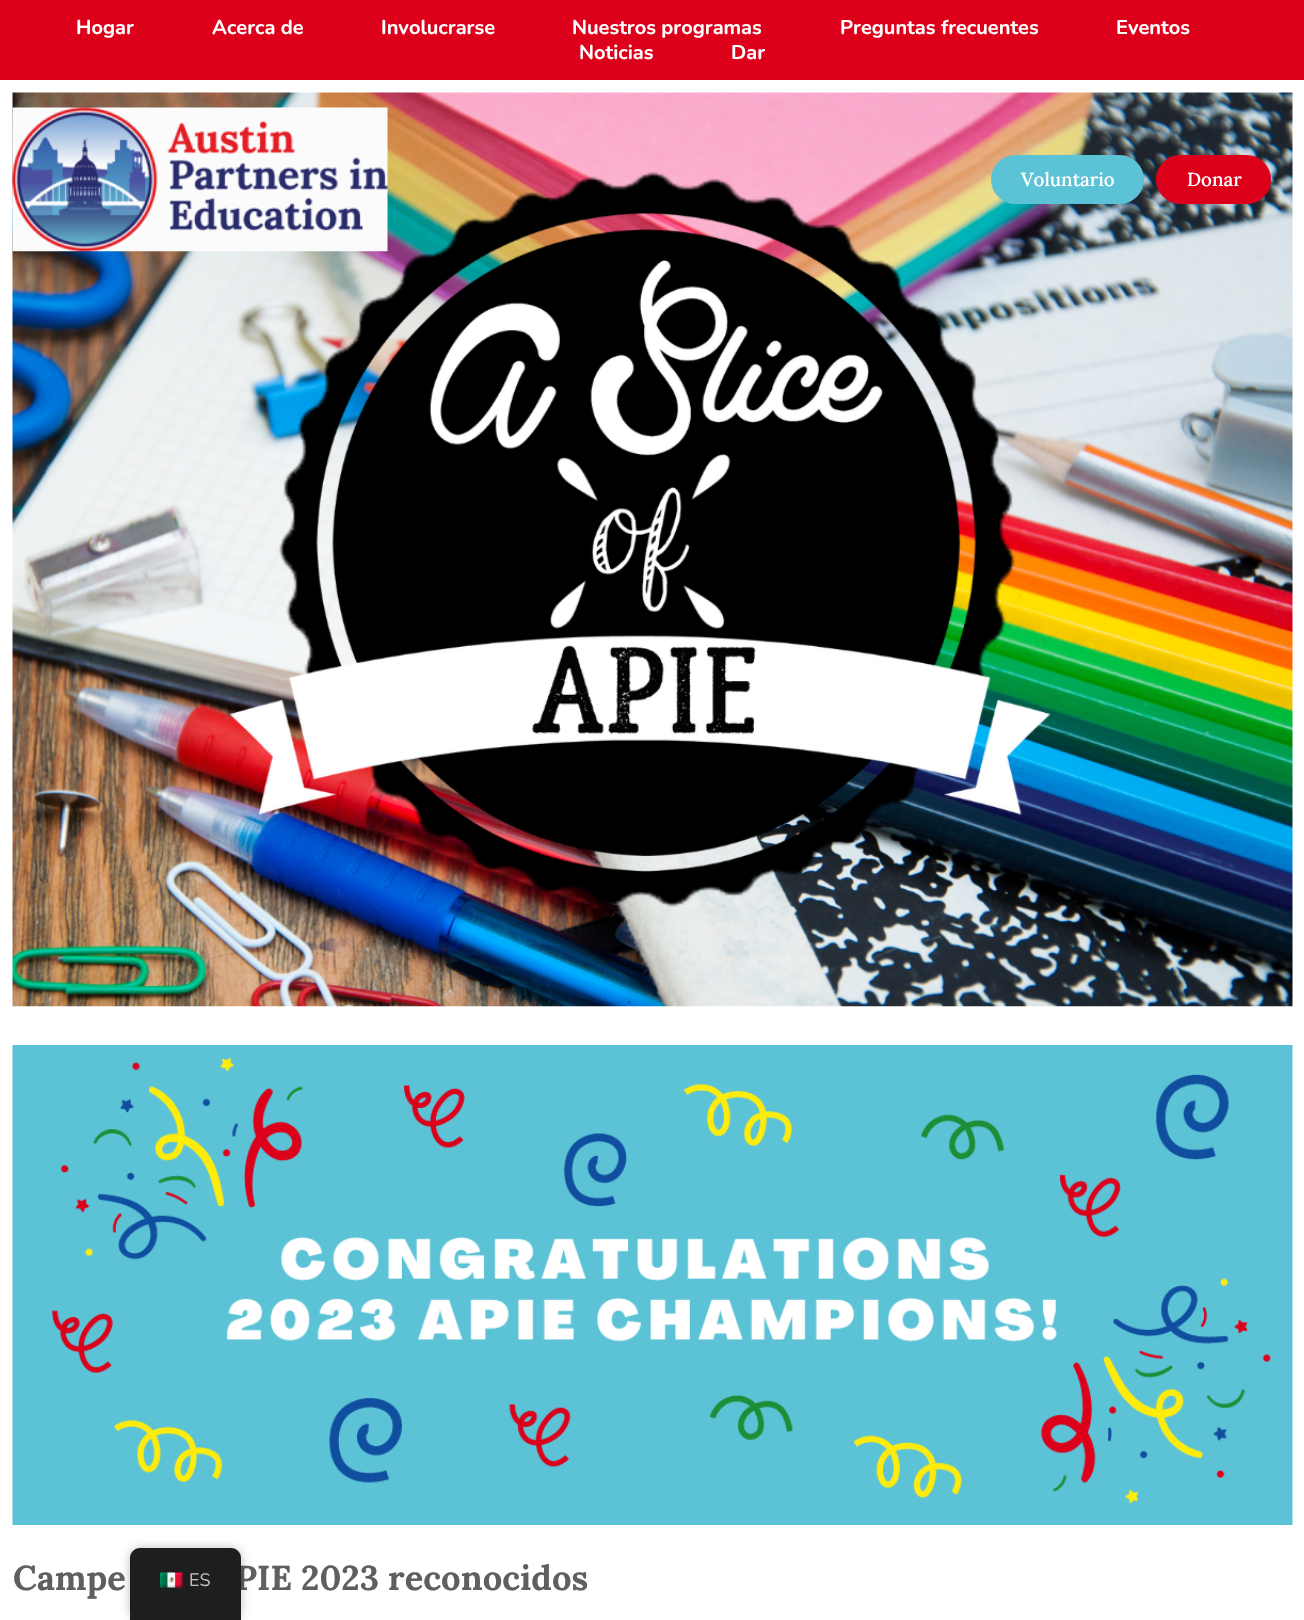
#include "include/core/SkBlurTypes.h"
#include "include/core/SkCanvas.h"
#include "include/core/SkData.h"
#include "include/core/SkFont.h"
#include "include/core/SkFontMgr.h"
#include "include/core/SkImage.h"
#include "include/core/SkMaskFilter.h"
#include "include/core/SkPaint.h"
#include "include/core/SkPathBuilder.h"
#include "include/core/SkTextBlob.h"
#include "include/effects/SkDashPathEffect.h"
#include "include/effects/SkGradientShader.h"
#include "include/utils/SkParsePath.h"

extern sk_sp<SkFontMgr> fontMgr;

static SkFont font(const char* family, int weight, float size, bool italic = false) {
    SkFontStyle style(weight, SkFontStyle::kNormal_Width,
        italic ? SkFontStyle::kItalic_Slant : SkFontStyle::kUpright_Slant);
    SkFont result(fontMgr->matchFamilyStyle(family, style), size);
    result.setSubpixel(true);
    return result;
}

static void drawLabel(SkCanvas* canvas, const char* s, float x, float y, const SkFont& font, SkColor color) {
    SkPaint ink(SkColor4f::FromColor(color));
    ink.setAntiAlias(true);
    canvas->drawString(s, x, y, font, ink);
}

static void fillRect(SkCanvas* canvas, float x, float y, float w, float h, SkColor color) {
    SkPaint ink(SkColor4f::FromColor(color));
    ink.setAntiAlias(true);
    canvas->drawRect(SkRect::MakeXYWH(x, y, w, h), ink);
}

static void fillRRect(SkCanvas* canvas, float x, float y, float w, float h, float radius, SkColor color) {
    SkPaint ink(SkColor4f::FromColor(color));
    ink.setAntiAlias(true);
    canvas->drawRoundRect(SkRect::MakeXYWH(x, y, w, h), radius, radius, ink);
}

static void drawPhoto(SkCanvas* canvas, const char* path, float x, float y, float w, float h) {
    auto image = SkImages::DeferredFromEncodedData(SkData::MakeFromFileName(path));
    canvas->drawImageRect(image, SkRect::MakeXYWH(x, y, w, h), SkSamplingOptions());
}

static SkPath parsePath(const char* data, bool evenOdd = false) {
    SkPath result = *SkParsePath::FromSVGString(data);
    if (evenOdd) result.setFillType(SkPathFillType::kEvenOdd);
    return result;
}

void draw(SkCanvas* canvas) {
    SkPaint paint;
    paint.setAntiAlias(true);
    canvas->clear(0xFFFFFFFF);
    fillRect(canvas, 0, 0, 1304, 80, 0xFFDC001A);
    SkFont font1 = font("Nunito", 700, 20);
    drawLabel(canvas, "Hogar", 76, 34, font1, 0xFFFFFFFF);
    drawLabel(canvas, "Acerca de", 212, 34, font1, 0xFFFFFFFF);
    drawLabel(canvas, "Involucrarse", 381, 34, font1, 0xFFFFFFFF);
    drawLabel(canvas, "Nuestros programas", 572, 34, font1, 0xFFFFFFFF);
    drawLabel(canvas, "Preguntas frecuentes", 840, 34, font1, 0xFFFFFFFF);
    drawLabel(canvas, "Eventos", 1116, 34, font1, 0xFFFFFFFF);
    drawLabel(canvas, "Noticias", 579, 59, font1, 0xFFFFFFFF);
    drawLabel(canvas, "Dar", 731, 59, font1, 0xFFFFFFFF);
    drawPhoto(canvas, "assets/img2.png", 12, 92, 1281, 915);
    drawPhoto(canvas, "assets/img1.png", 12, 107, 376, 145);
    fillRRect(canvas, 991, 155, 153, 49, 24.5f, 0xFF5CC3D6);
    SkFont font2 = font("Lora", 500, 18.75f);
    drawLabel(canvas, "Voluntario", 1021, 186, font2, 0xFFFFFFFF);
    fillRRect(canvas, 1156, 155, 115, 49, 24.5f, 0xFFDC001A);
    drawLabel(canvas, "Donar", 1187, 186, font2, 0xFFFFFFFF);
    drawPhoto(canvas, "assets/img3.png", 12, 1045, 1281, 480);
    SkFont font3 = font("Lora", 700, 34.5f);
    drawLabel(canvas, "Campe", 13, 1590, font3, 0xFF5F5F5F);
    drawLabel(canvas, "PIE 2023 reconocidos", 235, 1590, font3, 0xFF5F5F5F);
    paint.setColor(0x40000000);
    paint.setMaskFilter(SkMaskFilter::MakeBlur(kNormal_SkBlurStyle, 5));
    canvas->drawRoundRect(SkRect::MakeXYWH(130, 1548, 111, 72), 10, 10, paint);
    paint.setMaskFilter(nullptr);
    paint.setColor(0xFF1E1E1E);
    canvas->drawPath(parsePath("M140 1548H231C236.5 1548 241 1552.5 241 1558V1620H130V1558C130 1552.5 134.5 1548 140 1548Z"), paint);
    drawPhoto(canvas, "assets/img4.png", 160, 1572, 23, 16);
    SkFont font4 = font("Nunito", 400, 18);
    drawLabel(canvas, "ES", 189, 1586, font4, 0xFFBDBDBD);
}
